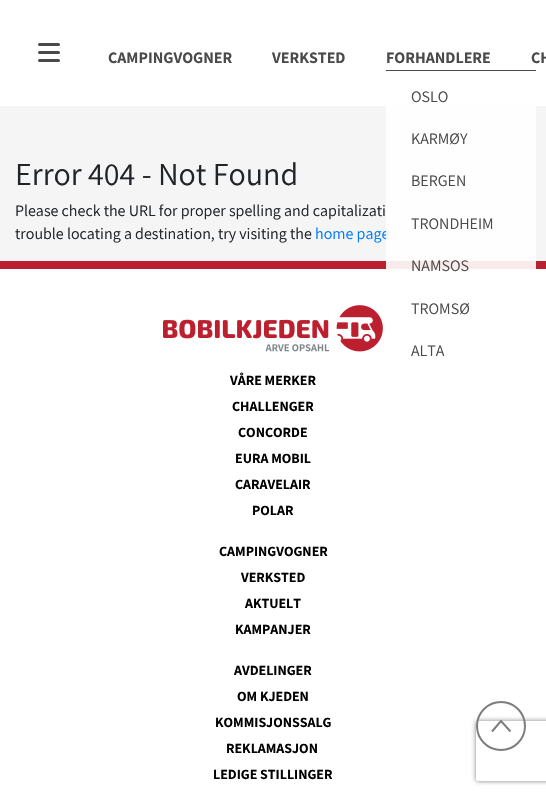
#include "include/core/SkBlurTypes.h"
#include "include/core/SkCanvas.h"
#include "include/core/SkData.h"
#include "include/core/SkFont.h"
#include "include/core/SkFontMgr.h"
#include "include/core/SkImage.h"
#include "include/core/SkMaskFilter.h"
#include "include/core/SkPaint.h"
#include "include/core/SkPathBuilder.h"
#include "include/core/SkTextBlob.h"
#include "include/effects/SkDashPathEffect.h"
#include "include/effects/SkGradientShader.h"
#include "include/utils/SkParsePath.h"

extern sk_sp<SkFontMgr> fontMgr;

static SkFont font(const char* family, int weight, float size, bool italic = false) {
    SkFontStyle style(weight, SkFontStyle::kNormal_Width,
        italic ? SkFontStyle::kItalic_Slant : SkFontStyle::kUpright_Slant);
    SkFont result(fontMgr->matchFamilyStyle(family, style), size);
    result.setSubpixel(true);
    return result;
}

static void drawLabel(SkCanvas* canvas, const char* s, float x, float y, const SkFont& font, SkColor color) {
    SkPaint ink(SkColor4f::FromColor(color));
    ink.setAntiAlias(true);
    canvas->drawString(s, x, y, font, ink);
}

static void fillRect(SkCanvas* canvas, float x, float y, float w, float h, SkColor color) {
    SkPaint ink(SkColor4f::FromColor(color));
    ink.setAntiAlias(true);
    canvas->drawRect(SkRect::MakeXYWH(x, y, w, h), ink);
}

static void fillRRect(SkCanvas* canvas, float x, float y, float w, float h, float radius, SkColor color) {
    SkPaint ink(SkColor4f::FromColor(color));
    ink.setAntiAlias(true);
    canvas->drawRoundRect(SkRect::MakeXYWH(x, y, w, h), radius, radius, ink);
}

static void drawPhoto(SkCanvas* canvas, const char* path, float x, float y, float w, float h) {
    auto image = SkImages::DeferredFromEncodedData(SkData::MakeFromFileName(path));
    canvas->drawImageRect(image, SkRect::MakeXYWH(x, y, w, h), SkSamplingOptions());
}

static SkPath parsePath(const char* data, bool evenOdd = false) {
    SkPath result = *SkParsePath::FromSVGString(data);
    if (evenOdd) result.setFillType(SkPathFillType::kEvenOdd);
    return result;
}

void draw(SkCanvas* canvas) {
    SkPaint paint;
    paint.setAntiAlias(true);
    canvas->clear(0xFFF5F5F5);
    fillRect(canvas, 0, 0, 546, 106, 0xFFFFFFFF);
    fillRRect(canvas, 38, 43, 22, 3, 1.5f, 0xFF4A4A4A);
    fillRRect(canvas, 38, 51, 22, 3, 1.5f, 0xFF4A4A4A);
    fillRRect(canvas, 38, 59, 22, 3, 1.5f, 0xFF4A4A4A);
    SkFont font1 = font("Assistant", 700, 16);
    drawLabel(canvas, "CAMPINGVOGNER", 108, 63, font1, 0xFF4A4A4A);
    drawLabel(canvas, "VERKSTED", 272, 63, font1, 0xFF4A4A4A);
    drawLabel(canvas, "FORHANDLERE", 386, 63, font1, 0xFF4A4A4A);
    SkFont font2 = font("Assistant", 400, 16);
    drawLabel(canvas, "home page", 315, 239, font2, 0xFF007BFF);
    fillRect(canvas, 0, 261, 546, 8, 0xFFBB2031);
    fillRect(canvas, 386, 106, 150, 163, 0xE6FFFFFF);
    fillRect(canvas, 386, 70, 150, 1, 0xFF4A4A4A);
    drawLabel(canvas, "OSLO", 411, 102, font2, 0xFF4A4A4A);
    drawLabel(canvas, "KARMØY", 411, 144, font2, 0xFF4A4A4A);
    drawLabel(canvas, "BERGEN", 411, 186, font2, 0xFF4A4A4A);
    drawLabel(canvas, "TRONDHEIM", 411, 229, font2, 0xFF4A4A4A);
    fillRect(canvas, 0, 269, 546, 526, 0xFFFFFFFF);
    drawLabel(canvas, "NAMSOS", 411, 271, font2, 0xFF4A4A4A);
    drawLabel(canvas, "TROMSØ", 411, 314, font2, 0xFF4A4A4A);
    drawLabel(canvas, "ALTA", 411, 356, font2, 0xFF4A4A4A);
    drawLabel(canvas, "CH", 531, 63, font1, 0xFF4A4A4A);
    SkFont font3 = font("Assistant", 400, 32);
    drawLabel(canvas, "Error 404 - Not Found", 15, 185, font3, 0xFF212529);
    drawLabel(canvas, "Please check the URL for proper spelling and capitalizati", 15, 216, font2, 0xFF212529);
    drawLabel(canvas, "trouble locating a destination, try visiting the", 15, 239, font2, 0xFF212529);
    drawPhoto(canvas, "assets/img1.png", 163, 305, 220, 47);
    SkFont font4 = font("Assistant", 700, 14);
    drawLabel(canvas, "VÅRE MERKER", 230, 385, font4, 0xFF000000);
    drawLabel(canvas, "CHALLENGER", 232, 411, font4, 0xFF000000);
    drawLabel(canvas, "CONCORDE", 238, 437, font4, 0xFF000000);
    drawLabel(canvas, "EURA MOBIL", 235, 463, font4, 0xFF000000);
    drawLabel(canvas, "CARAVELAIR", 235, 489, font4, 0xFF000000);
    drawLabel(canvas, "POLAR", 252, 515, font4, 0xFF000000);
    drawLabel(canvas, "CAMPINGVOGNER", 219, 556, font4, 0xFF000000);
    drawLabel(canvas, "VERKSTED", 241, 582, font4, 0xFF000000);
    drawLabel(canvas, "AKTUELT", 245, 608, font4, 0xFF000000);
    drawLabel(canvas, "KAMPANJER", 235, 634, font4, 0xFF000000);
    drawLabel(canvas, "AVDELINGER", 234, 675, font4, 0xFF000000);
    drawLabel(canvas, "OM KJEDEN", 237, 701, font4, 0xFF000000);
    drawLabel(canvas, "KOMMISJONSSALG", 215, 727, font4, 0xFF000000);
    drawLabel(canvas, "REKLAMASJON", 226, 753, font4, 0xFF000000);
    drawLabel(canvas, "LEDIGE STILLINGER", 213, 779, font4, 0xFF000000);
    paint.setStroke(true);
    paint.setStrokeWidth(2);
    paint.setColor(0xFF7D7D7D);
    canvas->drawCircle(501, 726, 24, paint);
    canvas->drawPath(parsePath("M510.5 731.5L501 721L492 731.5"), paint);
    canvas->save();
    canvas->clipPath(parsePath("M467 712H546V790H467ZM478 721H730C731 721 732 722 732 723V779C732 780 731 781 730 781H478C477 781 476 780 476 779V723C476 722 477 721 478 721Z", true), true);
    paint.setStroke(false);
    paint.setColor(0xFF808080);
    paint.setMaskFilter(SkMaskFilter::MakeBlur(kNormal_SkBlurStyle, 2.5f));
    canvas->drawRoundRect(SkRect::MakeXYWH(476, 721, 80, 60), 2, 2, paint);
    paint.setMaskFilter(nullptr);
    canvas->restore();
}
